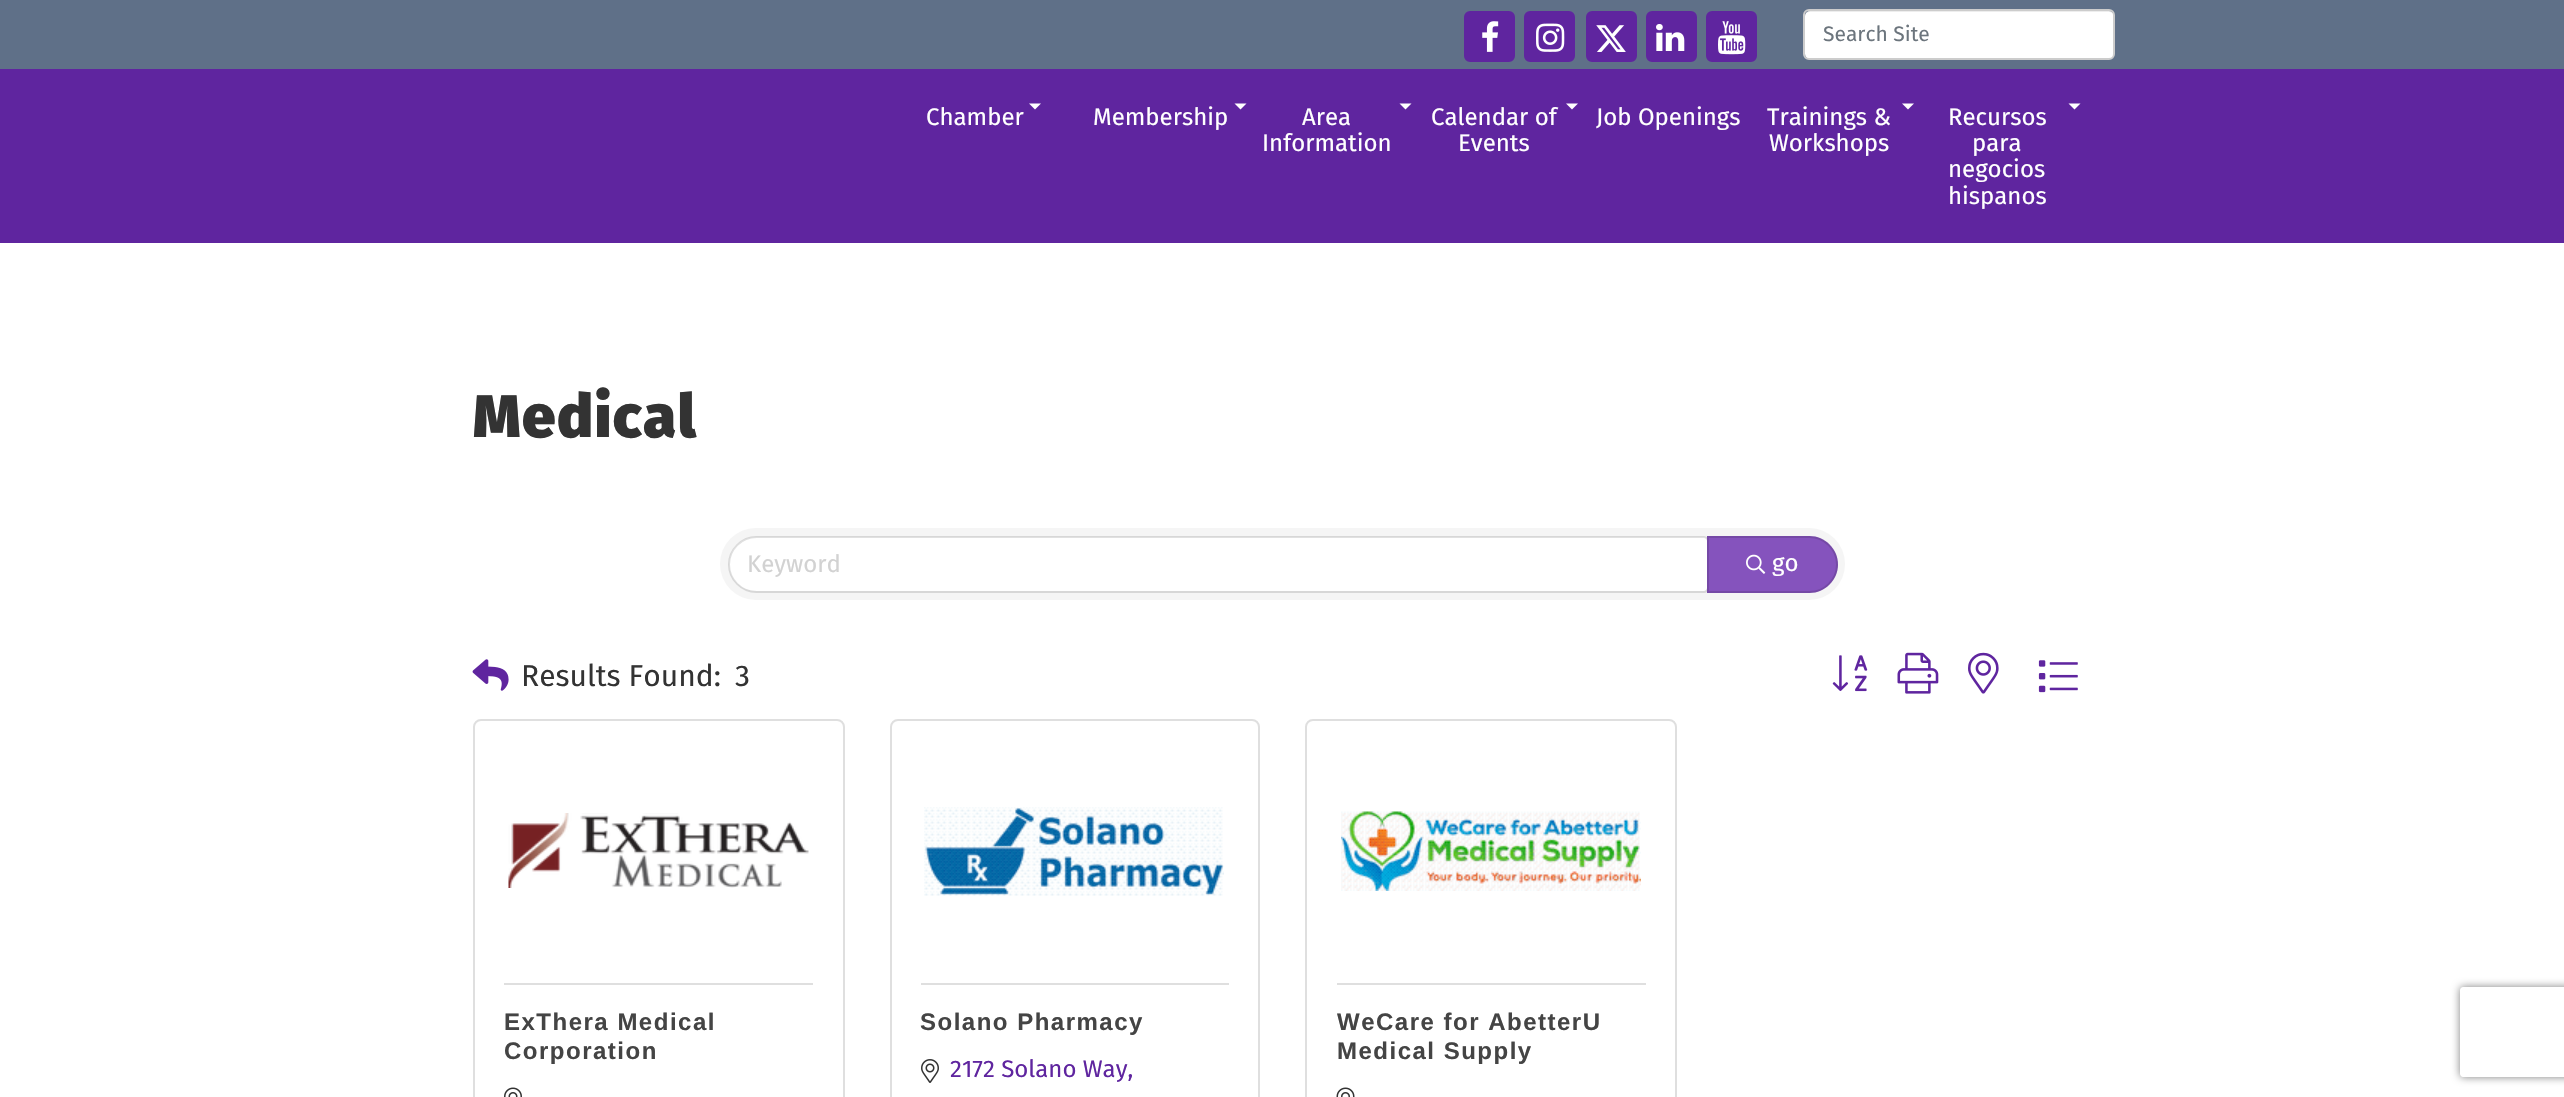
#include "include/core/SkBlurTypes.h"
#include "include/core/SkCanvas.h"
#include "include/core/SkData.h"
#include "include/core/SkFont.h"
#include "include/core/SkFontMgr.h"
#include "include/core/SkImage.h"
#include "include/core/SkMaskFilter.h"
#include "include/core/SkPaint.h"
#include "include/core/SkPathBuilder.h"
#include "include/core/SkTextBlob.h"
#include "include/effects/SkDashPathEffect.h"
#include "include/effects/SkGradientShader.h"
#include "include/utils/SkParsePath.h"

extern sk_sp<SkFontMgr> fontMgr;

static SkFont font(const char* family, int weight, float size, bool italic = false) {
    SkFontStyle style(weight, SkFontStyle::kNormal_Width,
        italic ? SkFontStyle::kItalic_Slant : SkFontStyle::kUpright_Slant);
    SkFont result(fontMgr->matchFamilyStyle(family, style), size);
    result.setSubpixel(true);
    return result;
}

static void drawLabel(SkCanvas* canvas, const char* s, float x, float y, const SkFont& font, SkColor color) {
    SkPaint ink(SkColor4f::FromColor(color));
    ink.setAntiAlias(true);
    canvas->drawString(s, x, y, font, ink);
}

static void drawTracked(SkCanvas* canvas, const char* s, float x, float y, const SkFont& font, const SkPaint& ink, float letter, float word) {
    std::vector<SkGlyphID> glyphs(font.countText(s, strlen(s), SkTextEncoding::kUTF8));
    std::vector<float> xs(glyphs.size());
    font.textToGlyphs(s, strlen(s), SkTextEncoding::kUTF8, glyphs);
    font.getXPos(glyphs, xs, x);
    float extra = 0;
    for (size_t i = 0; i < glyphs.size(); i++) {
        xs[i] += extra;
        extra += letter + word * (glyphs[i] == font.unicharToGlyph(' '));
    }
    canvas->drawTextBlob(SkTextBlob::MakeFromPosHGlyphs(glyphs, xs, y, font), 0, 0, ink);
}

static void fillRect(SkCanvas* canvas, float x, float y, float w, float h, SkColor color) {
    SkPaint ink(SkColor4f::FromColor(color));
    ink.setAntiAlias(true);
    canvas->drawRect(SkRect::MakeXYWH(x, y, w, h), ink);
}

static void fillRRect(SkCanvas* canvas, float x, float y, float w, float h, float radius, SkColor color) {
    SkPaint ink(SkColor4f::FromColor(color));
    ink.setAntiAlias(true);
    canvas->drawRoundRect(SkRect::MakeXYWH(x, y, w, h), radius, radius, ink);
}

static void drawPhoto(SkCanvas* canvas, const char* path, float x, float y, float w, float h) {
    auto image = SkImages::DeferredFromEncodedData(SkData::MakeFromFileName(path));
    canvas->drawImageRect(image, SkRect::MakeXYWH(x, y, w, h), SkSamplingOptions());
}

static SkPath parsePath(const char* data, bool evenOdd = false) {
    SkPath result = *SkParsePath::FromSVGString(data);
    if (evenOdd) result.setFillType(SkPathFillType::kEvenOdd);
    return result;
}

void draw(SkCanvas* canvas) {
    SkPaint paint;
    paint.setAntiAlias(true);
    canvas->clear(0xFFFFFFFF);
    fillRect(canvas, 0, 0, 2564, 69, 0xFF5F7088);
    paint.setColor(0xFF5F259F);
    canvas->drawRoundRect(SkRect::MakeXYWH(1465, 12, 49, 49), 5, 5, paint);
    paint.setStroke(true);
    paint.setStrokeWidth(2);
    canvas->drawRoundRect(SkRect::MakeXYWH(1465, 12, 49, 49), 5, 5, paint);
    drawPhoto(canvas, "assets/img1.png", 1482, 21, 17, 31);
    paint.setStroke(false);
    canvas->drawRoundRect(SkRect::MakeXYWH(1525, 12, 49, 49), 5, 5, paint);
    paint.setStroke(true);
    canvas->drawRoundRect(SkRect::MakeXYWH(1525, 12, 49, 49), 5, 5, paint);
    drawPhoto(canvas, "assets/img2.png", 1536, 23, 29, 29);
    paint.setStroke(false);
    canvas->drawRoundRect(SkRect::MakeXYWH(1587, 12, 49, 49), 5, 5, paint);
    paint.setStroke(true);
    canvas->drawRoundRect(SkRect::MakeXYWH(1587, 12, 49, 49), 5, 5, paint);
    drawPhoto(canvas, "assets/img3.png", 1596, 25, 30, 27);
    paint.setStroke(false);
    canvas->drawRoundRect(SkRect::MakeXYWH(1647, 12, 49, 49), 5, 5, paint);
    paint.setStroke(true);
    canvas->drawRoundRect(SkRect::MakeXYWH(1647, 12, 49, 49), 5, 5, paint);
    drawPhoto(canvas, "assets/img4.png", 1656, 24, 29, 27);
    paint.setStroke(false);
    canvas->drawRoundRect(SkRect::MakeXYWH(1707, 12, 49, 49), 5, 5, paint);
    paint.setStroke(true);
    canvas->drawRoundRect(SkRect::MakeXYWH(1707, 12, 49, 49), 5, 5, paint);
    drawPhoto(canvas, "assets/img5.png", 1718, 21, 28, 34);
    fillRRect(canvas, 1805, 11, 309, 48, 5, 0xFFFFFFFF);
    paint.setStroke(false);
    paint.setColor(0x12000000);
    canvas->drawPath(parsePath("M1809 12H2109C2111 12 2114 14 2114 16C2114 13 2112 11 2109 11H1810C1808 11 1807 12 1806 13Z"), paint);
    paint.setStroke(true);
    paint.setColor(0xFFCCCCCC);
    canvas->drawRoundRect(SkRect::MakeXYWH(1804, 10, 310, 49), 5, 5, paint);
    SkFont font1 = font("Fira Sans", 400, 21);
    drawLabel(canvas, "Search Site", 1823, 41, font1, 0xFF6C757D);
    fillRect(canvas, 0, 69, 2564, 174, 0xFF5F259F);
    SkFont font2 = font("Fira Sans", 400, 24);
    drawLabel(canvas, "Chamber", 926, 125, font2, 0xFFFFFFFF);
    paint.setStroke(false);
    paint.setColor(0xFFFFFFFF);
    canvas->drawPath(parsePath("M1029 103.5H1041L1035 109.5Z"), paint);
    drawLabel(canvas, "Membership", 1093, 125, font2, 0xFFFFFFFF);
    canvas->drawPath(parsePath("M1234.5 103.5H1246.5L1240.5 109.5Z"), paint);
    canvas->drawPath(parsePath("M1399.5 103.5H1411.5L1405.5 109.5Z"), paint);
    drawLabel(canvas, "Area", 1302, 125, font2, 0xFFFFFFFF);
    drawLabel(canvas, "Information", 1262, 151, font2, 0xFFFFFFFF);
    drawLabel(canvas, "Calendar of", 1431, 125, font2, 0xFFFFFFFF);
    canvas->drawPath(parsePath("M1566 103.5H1578L1572 109.5Z"), paint);
    drawLabel(canvas, "Events", 1458, 151, font2, 0xFFFFFFFF);
    drawLabel(canvas, "Job Openings", 1596, 125, font2, 0xFFFFFFFF);
    drawLabel(canvas, "Trainings &", 1767, 125, font2, 0xFFFFFFFF);
    canvas->drawPath(parsePath("M1902 103.5H1914L1908 109.5Z"), paint);
    drawLabel(canvas, "Workshops", 1769, 151, font2, 0xFFFFFFFF);
    canvas->drawPath(parsePath("M2068.5 103.5H2080.5L2074.5 109.5Z"), paint);
    drawLabel(canvas, "Recursos", 1948, 125, font2, 0xFFFFFFFF);
    drawLabel(canvas, "para", 1972, 151, font2, 0xFFFFFFFF);
    drawLabel(canvas, "negocios", 1948, 177, font2, 0xFFFFFFFF);
    drawLabel(canvas, "hispanos", 1948, 204, font2, 0xFFFFFFFF);
    SkFont font3 = font("Fira Sans", 900, 60);
    paint.setColor(0xFF333333);
    drawTracked(canvas, "Medical", 473, 437, font3, paint, 1.5f, 0);
    fillRRect(canvas, 720, 528, 1125, 72, 36, 0xFFF5F5F5);
    paint.setColor(0xFFFFFFFF);
    canvas->drawPath(parsePath("M756 537H1704C1705.5 537 1707 538.5 1707 540V588C1707 589.5 1705.5 591 1704 591H756C741 591 729 579 729 564C729 549 741 537 756 537Z"), paint);
    paint.setStroke(true);
    paint.setColor(0x1F000000);
    canvas->drawPath(parsePath("M756.5 537H1704C1706 537 1708 539 1708 541V588C1708 590 1706 592 1704 592H756.5C741.5 592 729 579.5 729 564.5C729 549.5 741.5 537 756.5 537Z"), paint);
    drawLabel(canvas, "Keyword", 747, 572, font2, 0xFFD2D2D2);
    paint.setStroke(false);
    paint.setColor(0xFF8553BD);
    canvas->drawPath(parsePath("M1707 536H1809.5C1825 536 1838 549 1838 564.5C1838 580 1825 593 1809.5 593H1707Z"), paint);
    paint.setStroke(true);
    paint.setColor(0x1F000000);
    canvas->drawPath(parsePath("M1708 537H1809.5C1824.5 537 1837 549.5 1837 564.5C1837 579.5 1824.5 592 1809.5 592H1708Z"), paint);
    drawPhoto(canvas, "assets/img6.png", 1746, 554, 20, 20);
    drawLabel(canvas, "go", 1772, 571, font2, 0xFFFFFFFF);
    drawPhoto(canvas, "assets/img7.png", 472, 659, 37, 32);
    SkFont font4 = font("Fira Sans", 400, 30);
    drawLabel(canvas, "Results Found:", 521, 686, font4, 0xFF333333);
    drawLabel(canvas, "3", 735, 686, font4, 0xFF333333);
    drawPhoto(canvas, "assets/img8.png", 1832, 655, 36, 37);
    drawPhoto(canvas, "assets/img9.png", 1897, 652, 42, 42);
    drawPhoto(canvas, "assets/img10.png", 1968, 652, 31, 42);
    drawPhoto(canvas, "assets/img11.png", 2038, 660, 40, 33);
    paint.setColor(0xFFDFDFDF);
    canvas->drawRoundRect(SkRect::MakeXYWH(474, 720, 370, 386), 7, 7, paint);
    drawPhoto(canvas, "assets/img12.png", 508, 813, 301, 75);
    fillRect(canvas, 504, 983, 309, 2, 0xFFDFDFDF);
    SkFont font5 = font("Liberation Sans", 700, 24);
    paint.setStroke(false);
    paint.setColor(0xFF444444);
    drawTracked(canvas, "ExThera Medical", 504, 1030, font5, paint, 1.5f, 0);
    drawTracked(canvas, "Corporation", 504, 1059, font5, paint, 1.5f, 0);
    drawPhoto(canvas, "assets/img13.png", 504, 1087, 18, 10);
    paint.setStroke(true);
    paint.setColor(0xFFDFDFDF);
    canvas->drawRoundRect(SkRect::MakeXYWH(891, 720, 368, 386), 7, 7, paint);
    drawPhoto(canvas, "assets/img14.png", 924, 807, 300, 89);
    fillRect(canvas, 921, 983, 308, 2, 0xFFDFDFDF);
    paint.setStroke(false);
    paint.setColor(0xFF444444);
    drawTracked(canvas, "Solano Pharmacy", 920, 1030, font5, paint, 1.5f, 0);
    drawPhoto(canvas, "assets/img15.png", 921, 1059, 18, 24);
    drawLabel(canvas, "2172 Solano Way,", 950, 1077, font2, 0xFF5F259F);
    paint.setStroke(true);
    paint.setColor(0xFFDFDFDF);
    canvas->drawRoundRect(SkRect::MakeXYWH(1306, 720, 370, 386), 7, 7, paint);
    drawPhoto(canvas, "assets/img16.png", 1341, 811, 300, 80);
    fillRect(canvas, 1337, 983, 309, 2, 0xFFDFDFDF);
    paint.setStroke(false);
    paint.setColor(0xFF444444);
    drawTracked(canvas, "WeCare for AbetterU", 1337, 1030, font5, paint, 1.5f, 0);
    drawTracked(canvas, "Medical Supply", 1337, 1059, font5, paint, 1.5f, 0);
    drawPhoto(canvas, "assets/img17.png", 1336, 1087, 19, 10);
    canvas->save();
    canvas->clipPath(parsePath("M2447 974H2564V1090H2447ZM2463 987H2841C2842.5 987 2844 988.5 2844 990V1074C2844 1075.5 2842.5 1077 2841 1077H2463C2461.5 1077 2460 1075.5 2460 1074V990C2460 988.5 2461.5 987 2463 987Z", true), true);
    paint.setColor(0xFF808080);
    paint.setMaskFilter(SkMaskFilter::MakeBlur(kNormal_SkBlurStyle, 4));
    canvas->drawRoundRect(SkRect::MakeXYWH(2460, 987, 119, 90), 3, 3, paint);
    paint.setMaskFilter(nullptr);
    canvas->restore();
}
